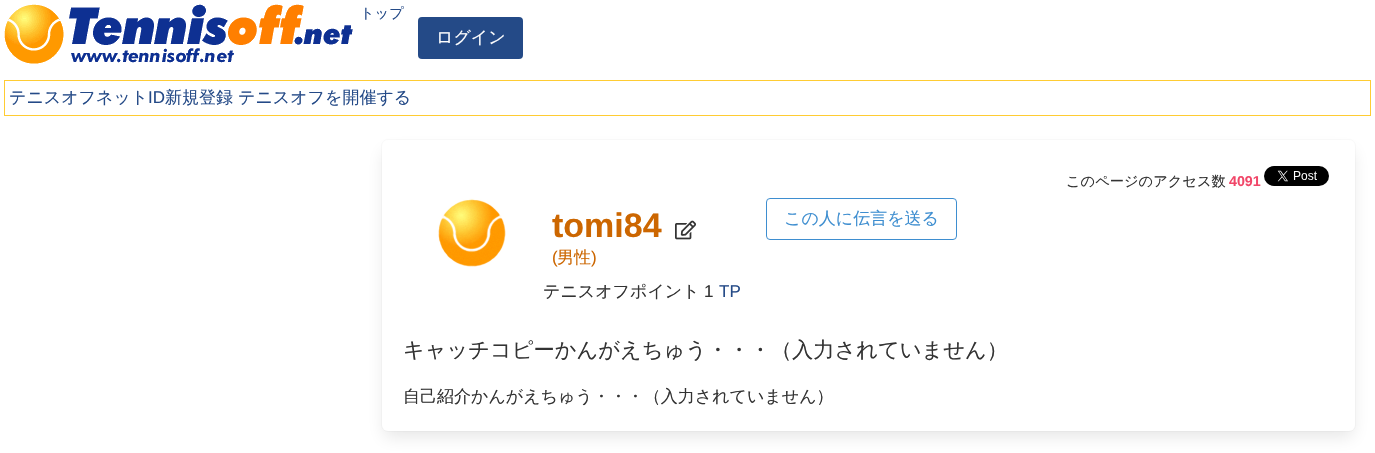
#include "include/core/SkBlurTypes.h"
#include "include/core/SkCanvas.h"
#include "include/core/SkData.h"
#include "include/core/SkFont.h"
#include "include/core/SkFontMgr.h"
#include "include/core/SkImage.h"
#include "include/core/SkMaskFilter.h"
#include "include/core/SkPaint.h"
#include "include/core/SkPathBuilder.h"
#include "include/core/SkTextBlob.h"
#include "include/effects/SkDashPathEffect.h"
#include "include/effects/SkGradientShader.h"
#include "include/utils/SkParsePath.h"

extern sk_sp<SkFontMgr> fontMgr;

static SkFont font(const char* family, int weight, float size, bool italic = false) {
    SkFontStyle style(weight, SkFontStyle::kNormal_Width,
        italic ? SkFontStyle::kItalic_Slant : SkFontStyle::kUpright_Slant);
    SkFont result(fontMgr->matchFamilyStyle(family, style), size);
    result.setSubpixel(true);
    return result;
}

static void drawLabel(SkCanvas* canvas, const char* s, float x, float y, const SkFont& font, SkColor color) {
    SkPaint ink(SkColor4f::FromColor(color));
    ink.setAntiAlias(true);
    canvas->drawString(s, x, y, font, ink);
}

static void fillRRect(SkCanvas* canvas, float x, float y, float w, float h, float radius, SkColor color) {
    SkPaint ink(SkColor4f::FromColor(color));
    ink.setAntiAlias(true);
    canvas->drawRoundRect(SkRect::MakeXYWH(x, y, w, h), radius, radius, ink);
}

static void drawPhoto(SkCanvas* canvas, const char* path, float x, float y, float w, float h) {
    auto image = SkImages::DeferredFromEncodedData(SkData::MakeFromFileName(path));
    canvas->drawImageRect(image, SkRect::MakeXYWH(x, y, w, h), SkSamplingOptions());
}

void draw(SkCanvas* canvas) {
    SkPaint paint;
    paint.setAntiAlias(true);
    canvas->clear(0xFFFFFFFF);
    drawPhoto(canvas, "assets/img1.png", 4, 4, 349, 60);
    SkFont font1 = font("WenQuanYi Zen Hei", 500, 14.25f);
    drawLabel(canvas, "トップ", 360, 18, font1, 0xFF244A87);
    fillRRect(canvas, 418, 17, 105, 42, 4, 0xFF244A87);
    SkFont font2 = font("WenQuanYi Zen Hei", 500, 17);
    drawLabel(canvas, "ログイン", 436, 43, font2, 0xFFFFFFFF);
    paint.setStroke(true);
    paint.setStrokeWidth(1);
    paint.setColor(0xFFFFCC33);
    canvas->drawRect(SkRect::MakeXYWH(4.5f, 80.5f, 1366, 35), paint);
    drawLabel(canvas, "テニスオフネット", 9, 103, font2, 0xFF244A87);
    SkFont font3 = font("Liberation Sans", 400, 17);
    drawLabel(canvas, "ID", 148, 103, font3, 0xFF244A87);
    drawLabel(canvas, "新規登録", 165, 103, font2, 0xFF244A87);
    drawLabel(canvas, "テニスオフを開催する", 238, 103, font2, 0xFF244A87);
    paint.setColor(0xFFFAFAFA);
    canvas->drawRoundRect(SkRect::MakeXYWH(381.5f, 139.5f, 974, 292), 6.5f, 6.5f, paint);
    paint.setStroke(false);
    paint.setColor(0x1A0A0A0A);
    paint.setMaskFilter(SkMaskFilter::MakeBlur(kNormal_SkBlurStyle, 8.5f));
    canvas->drawRoundRect(SkRect::MakeXYWH(384, 151, 969, 286), 4, 4, paint);
    paint.setMaskFilter(nullptr);
    fillRRect(canvas, 382, 140, 973, 291, 6, 0xFFFFFFFF);
    drawLabel(canvas, "このページのアクセス数", 1066, 186, font1, 0xFF333333);
    SkFont font4 = font("Liberation Sans", 700, 14.25f);
    drawLabel(canvas, "4091", 1229, 186, font4, 0xFFF14668);
    drawPhoto(canvas, "assets/img2.png", 1264, 166, 65, 20);
    drawPhoto(canvas, "assets/img3.png", 438, 198, 68, 69);
    SkFont font5 = font("Liberation Sans", 700, 34);
    drawLabel(canvas, "tomi84", 552, 237, font5, 0xFFCC6600);
    drawPhoto(canvas, "assets/img4.png", 675, 220, 21, 20);
    drawLabel(canvas, "(", 552, 263, font3, 0xFFCC6600);
    drawLabel(canvas, "男性", 557, 263, font2, 0xFFCC6600);
    drawLabel(canvas, ")", 591, 263, font3, 0xFFCC6600);
    drawLabel(canvas, "テニスオフポイント", 543, 297, font2, 0xFF333333);
    drawLabel(canvas, "1", 704, 297, font3, 0xFF333333);
    drawLabel(canvas, "TP", 719, 297, font3, 0xFF244A87);
    paint.setStroke(true);
    paint.setColor(0xFF3E8ED0);
    canvas->drawRoundRect(SkRect::MakeXYWH(766.5f, 198.5f, 190, 41), 3.5f, 3.5f, paint);
    drawLabel(canvas, "この人に伝言を送る", 784, 224, font2, 0xFF3E8ED0);
    SkFont font6 = font("WenQuanYi Zen Hei", 500, 21.25f);
    drawLabel(canvas, "キャッチコピーかんがえちゅう・・・（入力されていません）", 403, 357, font6, 0xFF333333);
    drawLabel(canvas, "自己紹介かんがえちゅう・・・（入力されていません）", 403, 402, font2, 0xFF333333);
}
